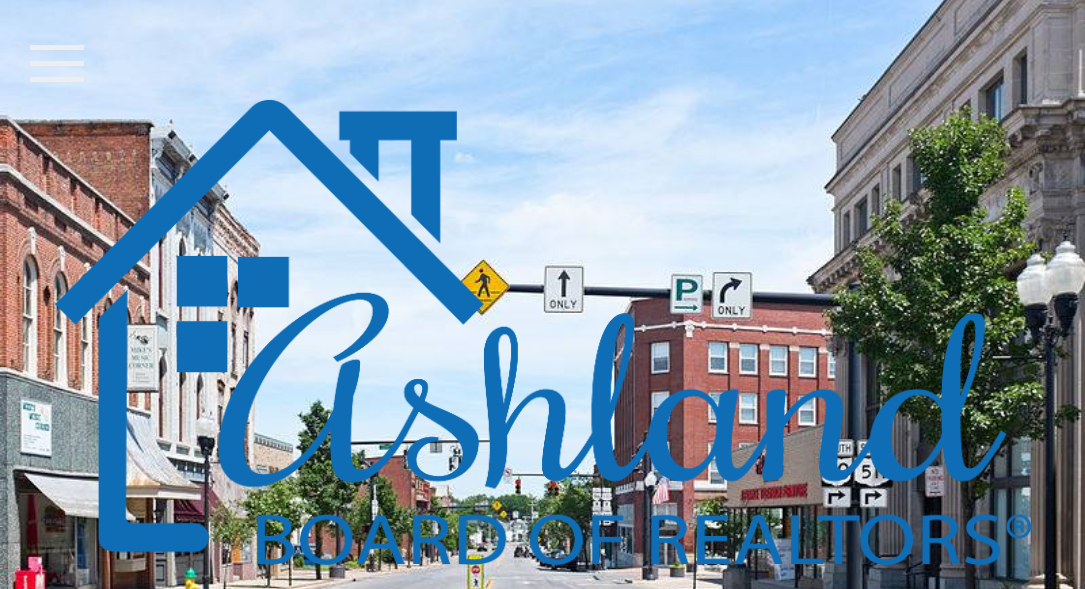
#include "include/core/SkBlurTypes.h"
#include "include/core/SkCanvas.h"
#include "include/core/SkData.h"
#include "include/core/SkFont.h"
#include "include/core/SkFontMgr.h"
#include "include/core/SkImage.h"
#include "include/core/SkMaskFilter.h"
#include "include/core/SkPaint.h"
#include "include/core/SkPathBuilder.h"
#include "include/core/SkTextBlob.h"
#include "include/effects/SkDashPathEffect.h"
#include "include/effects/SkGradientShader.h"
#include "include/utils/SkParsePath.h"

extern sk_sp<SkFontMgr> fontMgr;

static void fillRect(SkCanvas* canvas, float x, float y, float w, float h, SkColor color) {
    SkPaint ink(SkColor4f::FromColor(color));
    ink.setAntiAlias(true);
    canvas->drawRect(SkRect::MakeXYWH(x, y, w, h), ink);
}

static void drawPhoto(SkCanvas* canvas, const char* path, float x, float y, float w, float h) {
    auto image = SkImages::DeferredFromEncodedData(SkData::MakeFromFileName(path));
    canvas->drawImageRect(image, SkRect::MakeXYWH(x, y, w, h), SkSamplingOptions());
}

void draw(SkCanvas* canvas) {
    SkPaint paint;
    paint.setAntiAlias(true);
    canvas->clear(0xFFFFFFFF);
    drawPhoto(canvas, "assets/img1.png", 0, 0, 1085, 589);
    fillRect(canvas, 30, 45, 54, 5, 0xFFEEEEEE);
    fillRect(canvas, 30, 61, 54, 5, 0xFFEEEEEE);
    fillRect(canvas, 30, 77, 54, 5, 0xFFEEEEEE);
    drawPhoto(canvas, "assets/img2.png", 55, 100, 976, 465);
}
